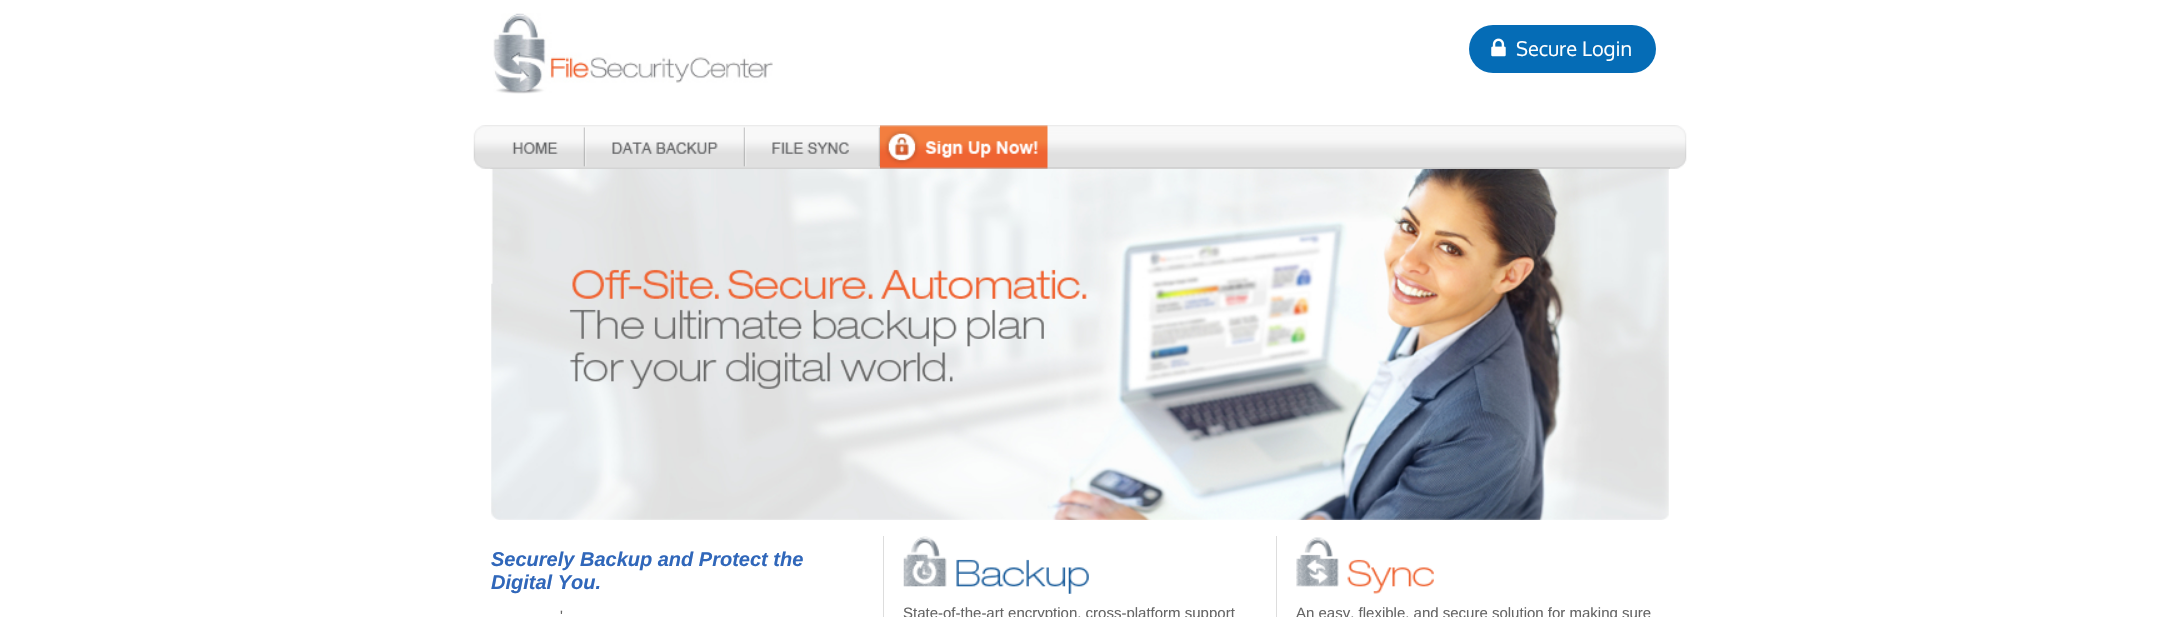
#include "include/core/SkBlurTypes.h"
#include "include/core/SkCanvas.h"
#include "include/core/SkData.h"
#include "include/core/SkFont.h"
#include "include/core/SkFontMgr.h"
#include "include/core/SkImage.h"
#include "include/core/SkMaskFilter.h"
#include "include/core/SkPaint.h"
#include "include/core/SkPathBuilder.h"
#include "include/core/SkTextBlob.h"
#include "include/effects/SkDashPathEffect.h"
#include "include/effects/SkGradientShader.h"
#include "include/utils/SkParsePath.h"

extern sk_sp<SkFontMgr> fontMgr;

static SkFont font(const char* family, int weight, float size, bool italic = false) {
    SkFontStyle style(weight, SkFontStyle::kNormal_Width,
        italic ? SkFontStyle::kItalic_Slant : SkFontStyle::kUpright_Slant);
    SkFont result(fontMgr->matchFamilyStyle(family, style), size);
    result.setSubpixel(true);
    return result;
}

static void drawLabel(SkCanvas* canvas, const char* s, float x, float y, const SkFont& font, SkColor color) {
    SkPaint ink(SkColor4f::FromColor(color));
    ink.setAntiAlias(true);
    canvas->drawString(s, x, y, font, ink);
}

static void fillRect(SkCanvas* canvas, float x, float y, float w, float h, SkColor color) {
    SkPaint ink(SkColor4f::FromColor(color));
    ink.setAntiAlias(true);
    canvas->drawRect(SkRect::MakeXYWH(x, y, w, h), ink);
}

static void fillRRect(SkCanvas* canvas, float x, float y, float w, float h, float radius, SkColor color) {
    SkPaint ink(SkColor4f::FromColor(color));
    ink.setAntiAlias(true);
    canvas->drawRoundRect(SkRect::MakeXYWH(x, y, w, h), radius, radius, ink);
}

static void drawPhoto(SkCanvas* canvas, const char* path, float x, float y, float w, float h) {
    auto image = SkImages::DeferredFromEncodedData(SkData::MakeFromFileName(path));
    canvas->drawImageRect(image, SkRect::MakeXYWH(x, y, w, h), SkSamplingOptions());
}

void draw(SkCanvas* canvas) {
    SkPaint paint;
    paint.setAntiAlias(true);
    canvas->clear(0xFFFFFFFF);
    drawPhoto(canvas, "assets/img1.png", 493, 13, 280, 81);
    fillRRect(canvas, 1469, 25, 187, 48, 24, 0xFF056CB6);
    drawPhoto(canvas, "assets/img2.png", 1491, 38, 15, 19);
    SkFont font1 = font("Oxygen", 400, 20);
    drawLabel(canvas, "Secure Login", 1516, 56, font1, 0xFFFFFFFF);
    drawPhoto(canvas, "assets/img3.png", 473, 125, 1214, 44);
    drawPhoto(canvas, "assets/img4.png", 490, 125, 1180, 44);
    drawPhoto(canvas, "assets/img9.png", 491, 168, 1178, 352);
    drawPhoto(canvas, "assets/img5.png", 490, 127, 95, 42);
    drawPhoto(canvas, "assets/img6.png", 585, 127, 160, 41);
    drawPhoto(canvas, "assets/img7.png", 745, 127, 135, 41);
    drawPhoto(canvas, "assets/img8.png", 880, 125, 168, 44);
    fillRect(canvas, 883, 536, 1, 81, 0xFFDDDDDD);
    SkFont font2 = font("Liberation Sans", 700, 20, true);
    drawLabel(canvas, "Securely Backup and Protect the", 491, 566, font2, 0xFF3067BA);
    drawLabel(canvas, "Digital You.", 491, 589, font2, 0xFF3067BA);
    SkFont font3 = font("Liberation Sans", 400, 15);
    drawLabel(canvas, "'", 560, 621, font3, 0xFF666666);
    fillRect(canvas, 1276, 536, 1, 81, 0xFFDDDDDD);
    drawPhoto(canvas, "assets/img10.png", 903, 536, 186, 58);
    drawLabel(canvas, "State-of-the-art encryption, cross-platform support", 903, 618, font3, 0xFF666666);
    drawPhoto(canvas, "assets/img11.png", 1296, 537, 138, 57);
    drawLabel(canvas, "An easy, flexible, and secure solution for making sure", 1296, 618, font3, 0xFF666666);
}
